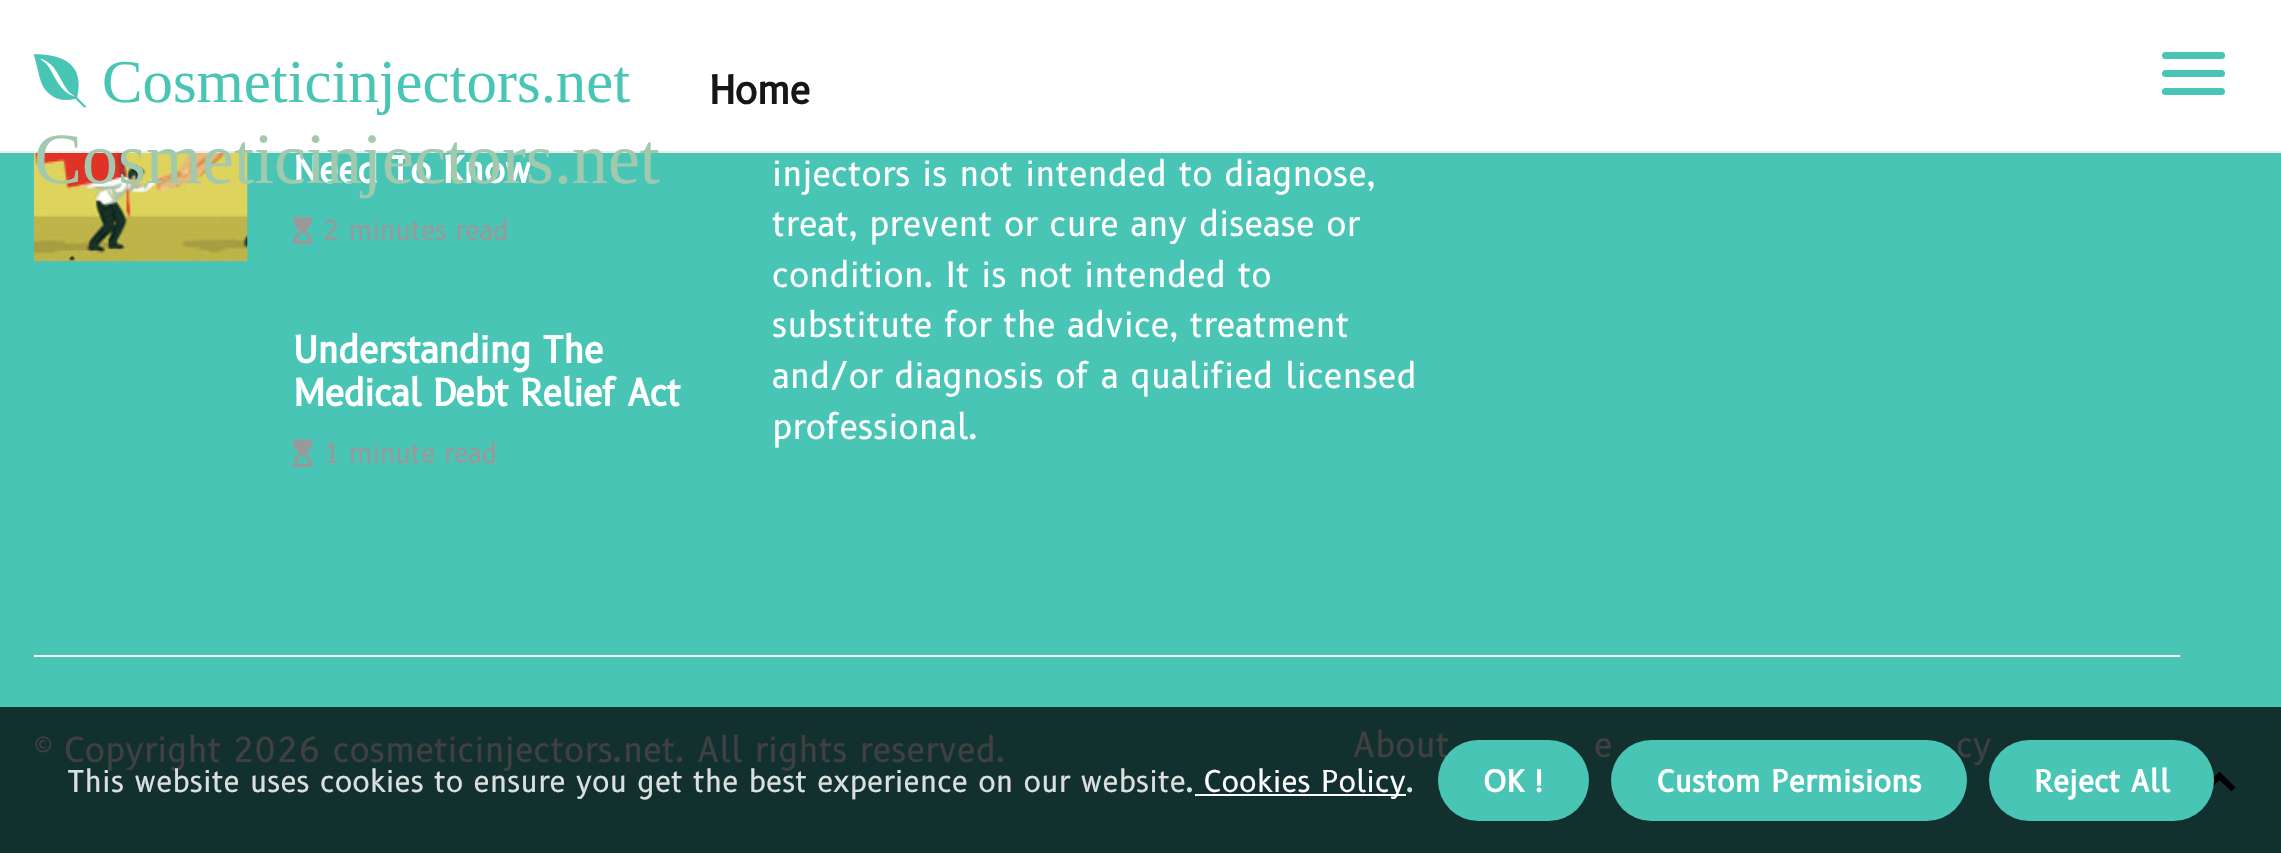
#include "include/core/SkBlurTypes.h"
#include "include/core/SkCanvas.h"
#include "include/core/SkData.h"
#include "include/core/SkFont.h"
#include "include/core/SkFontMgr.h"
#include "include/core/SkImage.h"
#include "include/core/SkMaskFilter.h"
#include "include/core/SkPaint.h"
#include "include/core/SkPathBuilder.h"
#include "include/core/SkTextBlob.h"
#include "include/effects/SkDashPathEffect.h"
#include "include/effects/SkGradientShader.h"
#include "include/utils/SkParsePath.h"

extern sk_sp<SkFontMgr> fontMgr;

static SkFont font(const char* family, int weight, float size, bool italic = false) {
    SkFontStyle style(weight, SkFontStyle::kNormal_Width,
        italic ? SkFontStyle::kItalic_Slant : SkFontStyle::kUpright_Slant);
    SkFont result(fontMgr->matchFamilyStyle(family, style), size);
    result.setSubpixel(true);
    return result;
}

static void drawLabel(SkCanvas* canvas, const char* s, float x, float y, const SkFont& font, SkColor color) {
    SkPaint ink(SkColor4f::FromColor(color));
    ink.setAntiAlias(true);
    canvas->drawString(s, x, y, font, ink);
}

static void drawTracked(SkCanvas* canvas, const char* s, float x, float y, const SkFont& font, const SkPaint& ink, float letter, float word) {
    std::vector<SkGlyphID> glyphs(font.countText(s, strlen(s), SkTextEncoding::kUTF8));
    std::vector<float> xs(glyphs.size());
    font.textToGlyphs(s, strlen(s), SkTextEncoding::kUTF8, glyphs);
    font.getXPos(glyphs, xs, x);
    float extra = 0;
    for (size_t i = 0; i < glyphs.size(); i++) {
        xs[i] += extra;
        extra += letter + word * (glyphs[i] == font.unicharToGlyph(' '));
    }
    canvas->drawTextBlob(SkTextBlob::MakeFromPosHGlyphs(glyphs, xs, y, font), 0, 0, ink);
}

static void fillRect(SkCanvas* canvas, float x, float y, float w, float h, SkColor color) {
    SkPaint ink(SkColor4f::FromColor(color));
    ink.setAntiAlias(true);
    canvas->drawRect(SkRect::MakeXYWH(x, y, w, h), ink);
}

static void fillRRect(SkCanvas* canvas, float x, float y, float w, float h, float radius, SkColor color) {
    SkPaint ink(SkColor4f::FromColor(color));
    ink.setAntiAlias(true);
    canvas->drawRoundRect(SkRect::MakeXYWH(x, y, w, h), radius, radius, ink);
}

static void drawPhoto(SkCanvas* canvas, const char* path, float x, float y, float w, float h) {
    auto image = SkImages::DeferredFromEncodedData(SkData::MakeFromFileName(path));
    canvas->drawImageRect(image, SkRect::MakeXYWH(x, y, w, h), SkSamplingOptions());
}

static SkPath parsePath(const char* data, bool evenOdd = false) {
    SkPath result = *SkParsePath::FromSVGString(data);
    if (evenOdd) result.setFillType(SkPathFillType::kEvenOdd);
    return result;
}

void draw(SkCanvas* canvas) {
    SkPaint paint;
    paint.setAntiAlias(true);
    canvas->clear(0xFF49C5B6);
    fillRect(canvas, 0, 0, 2281, 151, 0xFFFFFFFF);
    fillRect(canvas, 0, 151, 2281, 2, 0xFFEBEBEB);
    drawPhoto(canvas, "assets/img1.png", 33, 54, 54, 54);
    SkFont font1 = font("Liberation Serif", 400, 60.75f);
    drawLabel(canvas, "Cosmeticinjectors.net", 102, 102, font1, 0xFF49C5B6);
    drawPhoto(canvas, "assets/img2.png", 33, 153, 215, 109);
    SkFont font2 = font("B612", 700, 36);
    paint.setColor(0xFFFFFFFF);
    drawTracked(canvas, "Need To Know", 293, 183, font2, paint, -0.9f, 0);
    SkFont font3 = font("Liberation Serif", 400, 72);
    drawLabel(canvas, "Cosmeticinjectors.net", 34, 183, font3, 0xFFA0C9AE);
    SkFont font4 = font("B612", 700, 38);
    paint.setColor(0xFF161616);
    drawTracked(canvas, "Home", 709, 104, font4, paint, -1, 0);
    fillRRect(canvas, 2162, 52, 63, 7, 3.5f, 0xFF49C5B6);
    fillRRect(canvas, 2162, 70, 63, 7, 3.5f, 0xFF49C5B6);
    fillRRect(canvas, 2162, 88, 63, 7, 3.5f, 0xFF49C5B6);
    fillRect(canvas, 0, 707, 2281, 146, 0xFF12312E);
    drawPhoto(canvas, "assets/img3.png", 292, 217, 21, 28);
    SkFont font5 = font("B612", 400, 27);
    paint.setColor(0xFF999999);
    drawTracked(canvas, "2 minutes read", 323, 240, font5, paint, -0.7f, 0);
    paint.setColor(0xFFFFFFFF);
    drawTracked(canvas, "Understanding The", 293, 363, font2, paint, -0.9f, 0);
    drawTracked(canvas, "Medical Debt Relief Act", 293, 406, font2, paint, -0.9f, 0);
    drawPhoto(canvas, "assets/img4.png", 292, 439, 21, 28);
    paint.setColor(0xFF999999);
    drawTracked(canvas, "1 minute read", 323, 463, font5, paint, -0.7f, 0);
    SkFont font6 = font("B612", 400, 33.75f);
    drawLabel(canvas, "injectors is not intended to diagnose,", 772, 186, font6, 0xFFFFFFFF);
    drawLabel(canvas, "treat, prevent or cure any disease or", 772, 236, font6, 0xFFFFFFFF);
    drawLabel(canvas, "condition. It is not intended to", 772, 287, font6, 0xFFFFFFFF);
    drawLabel(canvas, "substitute for the advice, treatment", 772, 337, font6, 0xFFFFFFFF);
    drawLabel(canvas, "and/or diagnosis of a qualified licensed", 772, 388, font6, 0xFFFFFFFF);
    drawLabel(canvas, "professional.", 772, 439, font6, 0xFFFFFFFF);
    fillRect(canvas, 34, 655, 2146, 2, 0xFFFFFFFF);
    drawLabel(canvas, "© Copyright 2026 cosmeticinjectors.net. All rights reserved.", 34, 762, font6, 0xFF404040);
    drawLabel(canvas, "About", 1353, 757, font6, 0xFF404040);
    drawLabel(canvas, "e", 1594, 757, font6, 0xFF404040);
    drawLabel(canvas, "cy", 1956, 757, font6, 0xFF404040);
    paint.setColor(0xFF000000);
    canvas->drawPath(parsePath("M2203.5 787.5L2219.5 771.5V780L2208 791.5ZM2235.5 787.5L2231.5 791.5L2219.5 780V771.5Z"), paint);
    SkFont font7 = font("B612", 400, 29.25f);
    drawLabel(canvas, "This website uses cookies to ensure you get the best experience on our website.", 67, 792, font7, 0xFFDBE0DF);
    fillRect(canvas, 1195, 794, 211, 2, 0xFFFFFFFF);
    drawLabel(canvas, "Cookies Policy", 1204, 792, font7, 0xFFFFFFFF);
    drawLabel(canvas, ".", 1406, 792, font7, 0xFFDBE0DF);
    fillRRect(canvas, 1438, 740, 151, 81, 40.5f, 0xFF49C5B6);
    SkFont font8 = font("B612", 700, 29.25f);
    drawLabel(canvas, "OK !", 1483, 792, font8, 0xFFFFFFFF);
    fillRRect(canvas, 1611, 740, 356, 81, 40.5f, 0xFF49C5B6);
    drawLabel(canvas, "Custom Permisions", 1657, 792, font8, 0xFFFFFFFF);
    fillRRect(canvas, 1989, 740, 225, 81, 40.5f, 0xFF49C5B6);
    drawLabel(canvas, "Reject All", 2034, 792, font8, 0xFFFFFFFF);
}
